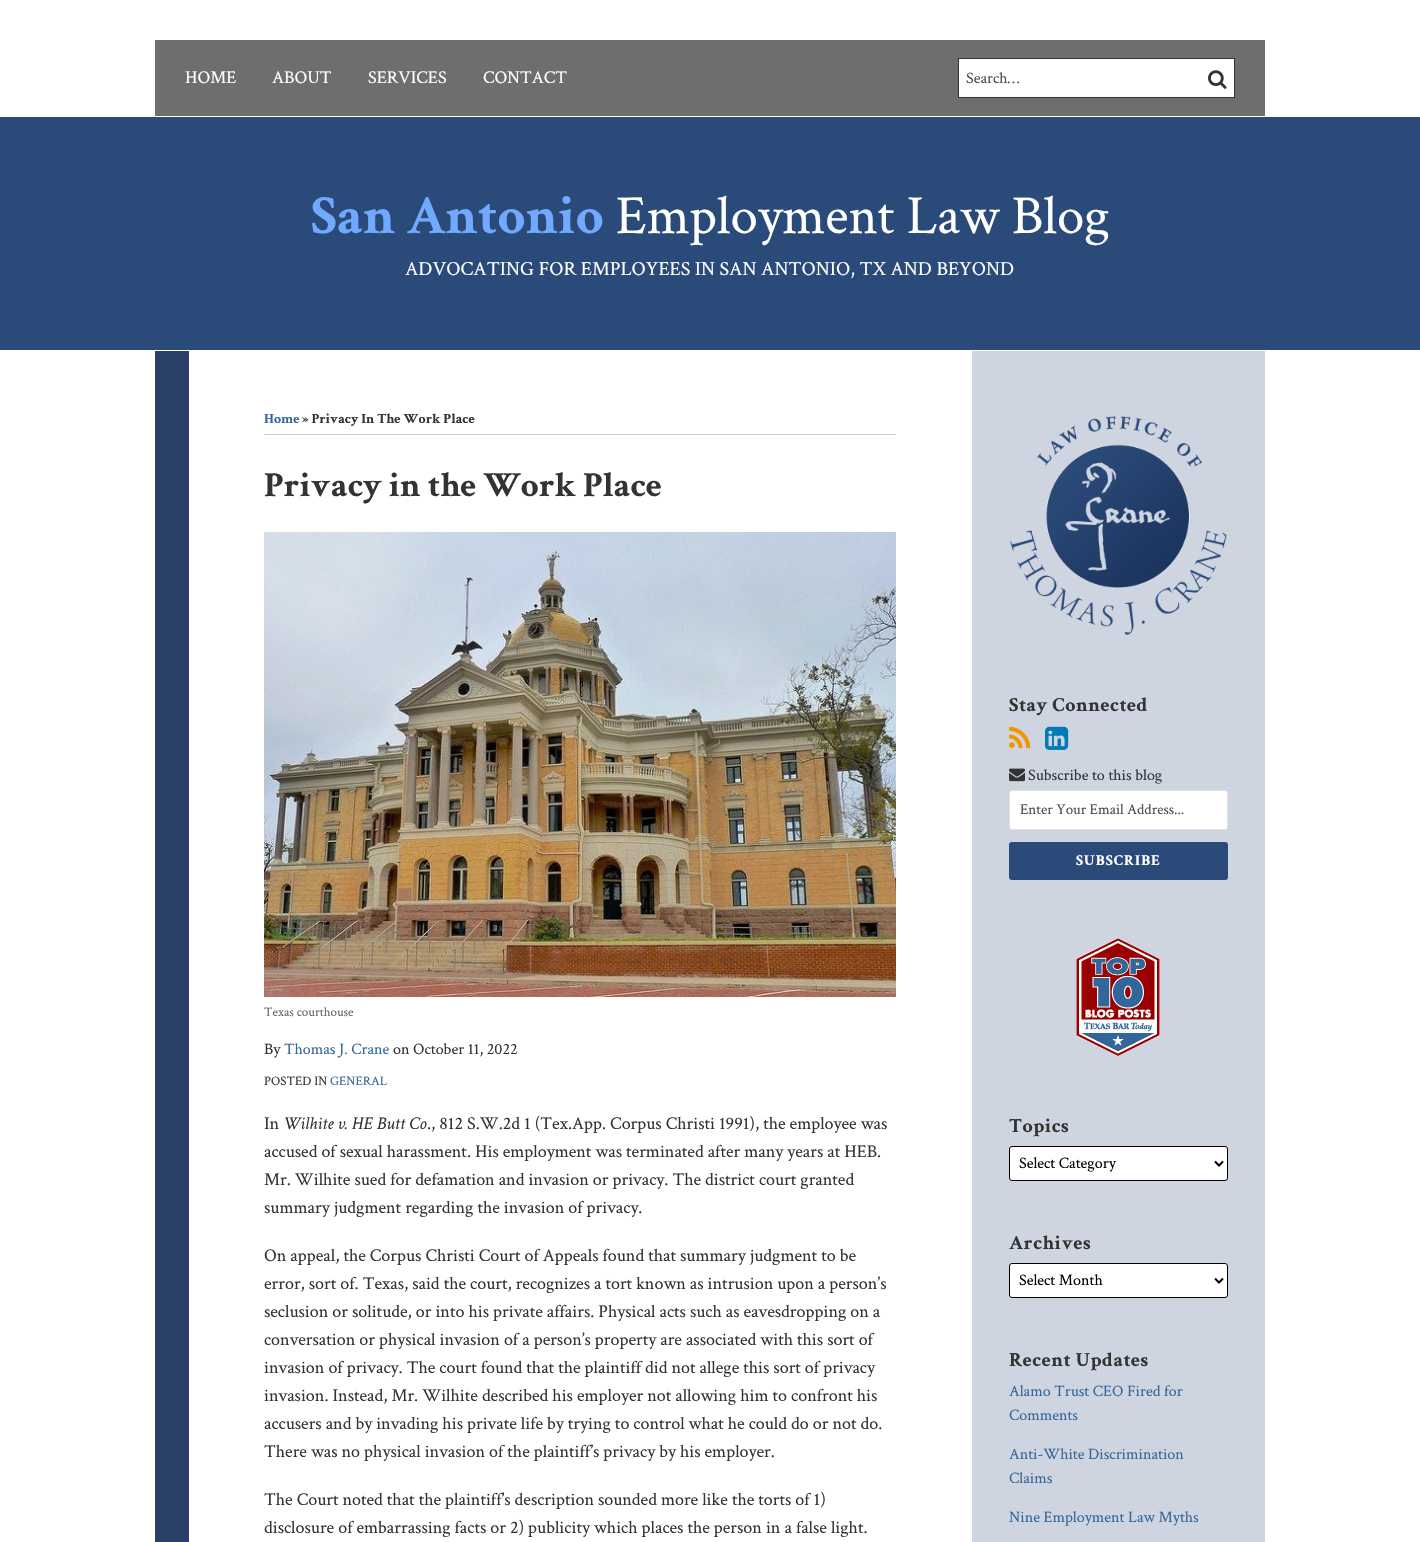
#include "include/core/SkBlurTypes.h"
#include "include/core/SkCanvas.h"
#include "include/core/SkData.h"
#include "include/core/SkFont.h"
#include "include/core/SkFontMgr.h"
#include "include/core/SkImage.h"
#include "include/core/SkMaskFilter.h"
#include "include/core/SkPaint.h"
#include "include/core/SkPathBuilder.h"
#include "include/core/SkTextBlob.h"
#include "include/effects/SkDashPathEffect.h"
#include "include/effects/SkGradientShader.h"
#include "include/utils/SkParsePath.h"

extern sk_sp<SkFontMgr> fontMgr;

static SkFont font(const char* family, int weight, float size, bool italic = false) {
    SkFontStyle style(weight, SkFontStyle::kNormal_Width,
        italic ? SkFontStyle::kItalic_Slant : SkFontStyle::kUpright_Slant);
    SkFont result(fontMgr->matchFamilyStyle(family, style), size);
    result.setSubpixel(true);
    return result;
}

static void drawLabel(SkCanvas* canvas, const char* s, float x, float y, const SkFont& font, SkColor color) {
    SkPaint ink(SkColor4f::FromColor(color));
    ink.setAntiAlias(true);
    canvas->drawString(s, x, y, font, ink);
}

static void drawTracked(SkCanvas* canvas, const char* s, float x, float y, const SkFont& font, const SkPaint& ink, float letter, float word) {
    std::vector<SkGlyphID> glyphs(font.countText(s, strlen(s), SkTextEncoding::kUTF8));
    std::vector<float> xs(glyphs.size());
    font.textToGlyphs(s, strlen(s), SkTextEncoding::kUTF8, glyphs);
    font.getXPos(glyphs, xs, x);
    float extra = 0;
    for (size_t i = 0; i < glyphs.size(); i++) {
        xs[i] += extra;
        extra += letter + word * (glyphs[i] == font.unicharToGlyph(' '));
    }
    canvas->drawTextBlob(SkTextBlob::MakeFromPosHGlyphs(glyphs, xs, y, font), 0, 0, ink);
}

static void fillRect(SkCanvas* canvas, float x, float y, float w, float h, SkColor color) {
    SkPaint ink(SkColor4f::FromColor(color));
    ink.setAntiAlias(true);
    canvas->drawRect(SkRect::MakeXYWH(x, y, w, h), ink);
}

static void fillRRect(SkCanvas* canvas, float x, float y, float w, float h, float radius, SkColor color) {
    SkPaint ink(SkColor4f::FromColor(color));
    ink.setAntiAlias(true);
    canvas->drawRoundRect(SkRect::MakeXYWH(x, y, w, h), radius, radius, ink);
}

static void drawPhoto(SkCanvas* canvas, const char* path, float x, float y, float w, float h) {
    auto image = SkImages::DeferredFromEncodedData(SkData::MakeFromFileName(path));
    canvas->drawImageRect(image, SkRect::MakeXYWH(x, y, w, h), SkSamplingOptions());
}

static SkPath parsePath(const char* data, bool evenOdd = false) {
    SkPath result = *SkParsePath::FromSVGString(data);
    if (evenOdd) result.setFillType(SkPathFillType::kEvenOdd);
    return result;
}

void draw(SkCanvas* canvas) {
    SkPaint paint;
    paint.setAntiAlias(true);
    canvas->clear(0xFFFFFFFF);
    fillRect(canvas, 155, 40, 1110, 76, 0xFF6E6E6E);
    SkFont font1 = font("Crimson Text", 400, 18);
    drawLabel(canvas, "HOME", 185, 83, font1, 0xFFFFFFFF);
    drawLabel(canvas, "ABOUT", 272, 83, font1, 0xFFFFFFFF);
    drawLabel(canvas, "SERVICES", 368, 83, font1, 0xFFFFFFFF);
    drawLabel(canvas, "CONTACT", 483, 83, font1, 0xFFFFFFFF);
    paint.setColor(0xFFFFFFFF);
    canvas->drawRect(SkRect::MakeXYWH(958.5f, 58.5f, 276, 39), paint);
    paint.setStroke(true);
    paint.setStrokeWidth(1);
    paint.setColor(0xFF333333);
    canvas->drawRect(SkRect::MakeXYWH(958.5f, 58.5f, 276, 39), paint);
    SkFont font2 = font("Crimson Text", 400, 16);
    drawLabel(canvas, "Search…", 966, 83, font2, 0xFF4D4D4D);
    drawPhoto(canvas, "assets/img1.png", 1208, 70, 19, 19);
    fillRect(canvas, 0, 117, 1420, 233, 0xFF2A4A79);
    SkFont font3 = font("Crimson Text", 700, 55);
    drawLabel(canvas, "San Antonio", 311, 233, font3, 0xFF70A9FE);
    SkFont font4 = font("Crimson Text", 400, 55);
    drawLabel(canvas, "Employment Law Blog", 616, 233, font4, 0xFFFFFFFF);
    SkFont font5 = font("Crimson Text", 400, 20);
    drawLabel(canvas, "ADVOCATING FOR EMPLOYEES IN SAN ANTONIO, TX AND BEYOND", 405, 275, font5, 0xFFFFFFFF);
    fillRect(canvas, 155, 351, 34, 1191, 0xFF2B4066);
    fillRect(canvas, 264, 434, 632, 1, 0xFFCCCCCC);
    SkFont font6 = font("Crimson Text", 700, 14);
    drawLabel(canvas, "Home", 264, 423, font6, 0xFF336699);
    drawLabel(canvas, "» Privacy In The Work Place", 302, 423, font6, 0xFF333333);
    SkFont font7 = font("Crimson Text", 700, 35);
    drawLabel(canvas, "Privacy in the Work Place", 264, 496, font7, 0xFF333333);
    drawPhoto(canvas, "assets/img2.png", 264, 532, 632, 465);
    SkFont font8 = font("Crimson Text", 400, 13);
    drawLabel(canvas, "Texas courthouse", 264, 1016, font8, 0xFF666666);
    drawLabel(canvas, "By", 264, 1054, font2, 0xFF333333);
    drawLabel(canvas, "Thomas J. Crane", 284, 1054, font2, 0xFF336699);
    drawLabel(canvas, "on October 11, 2022", 393, 1054, font2, 0xFF333333);
    drawLabel(canvas, "POSTED IN", 264, 1085, font8, 0xFF333333);
    drawLabel(canvas, "GENERAL", 330, 1085, font8, 0xFF336699);
    drawLabel(canvas, "In", 264, 1129, font1, 0xFF333333);
    SkFont font9 = font("Crimson Text", 400, 18, true);
    drawLabel(canvas, "Wilhite v. HE Butt Co", 283, 1129, font9, 0xFF333333);
    drawLabel(canvas, "., 812 S.W.2d 1 (Tex.App. Corpus Christi 1991), the employee was", 427, 1129, font1, 0xFF333333);
    drawLabel(canvas, "accused of sexual harassment. His employment was terminated after many years at HEB.", 264, 1157, font1, 0xFF333333);
    drawLabel(canvas, "Mr. Wilhite sued for defamation and invasion or privacy. The district court granted", 264, 1185, font1, 0xFF333333);
    drawLabel(canvas, "summary judgment regarding the invasion of privacy.", 264, 1213, font1, 0xFF333333);
    drawLabel(canvas, "On appeal, the Corpus Christi Court of Appeals found that summary judgment to be", 264, 1261, font1, 0xFF333333);
    drawLabel(canvas, "error, sort of. Texas, said the court, recognizes a tort known as intrusion upon a person’s", 264, 1289, font1, 0xFF333333);
    drawLabel(canvas, "seclusion or solitude, or into his private affairs. Physical acts such as eavesdropping on a", 264, 1317, font1, 0xFF333333);
    drawLabel(canvas, "conversation or physical invasion of a person’s property are associated with this sort of", 264, 1345, font1, 0xFF333333);
    drawLabel(canvas, "invasion of privacy. The court found that the plaintiff did not allege this sort of privacy", 264, 1373, font1, 0xFF333333);
    drawLabel(canvas, "invasion. Instead, Mr. Wilhite described his employer not allowing him to confront his", 264, 1401, font1, 0xFF333333);
    drawLabel(canvas, "accusers and by invading his private life by trying to control what he could do or not do.", 264, 1429, font1, 0xFF333333);
    drawLabel(canvas, "There was no physical invasion of the plaintiff’s privacy by his employer.", 264, 1457, font1, 0xFF333333);
    drawLabel(canvas, "The Court noted that the plaintiff’s description sounded more like the torts of 1)", 264, 1505, font1, 0xFF333333);
    drawLabel(canvas, "disclosure of embarrassing facts or 2) publicity which places the person in a false light.", 264, 1533, font1, 0xFF333333);
    fillRect(canvas, 972, 351, 293, 1191, 0xFFCED5E0);
    drawPhoto(canvas, "assets/img3.png", 1009, 416, 218, 219);
    SkFont font10 = font("Crimson Text", 700, 20);
    paint.setStroke(false);
    drawTracked(canvas, "Stay Connected", 1009, 711, font10, paint, 0.5f, 0);
    drawPhoto(canvas, "assets/img4.png", 1009, 726, 22, 22);
    drawPhoto(canvas, "assets/img5.png", 1045, 726, 24, 24);
    drawPhoto(canvas, "assets/img6.png", 1009, 768, 16, 14);
    drawLabel(canvas, "Subscribe to this blog", 1028, 780, font2, 0xFF333333);
    paint.setColor(0xFFFFFFFF);
    canvas->drawRoundRect(SkRect::MakeXYWH(1009.5f, 790.5f, 218, 39), 2.5f, 2.5f, paint);
    paint.setStroke(true);
    paint.setColor(0xFFE1E1E1);
    canvas->drawRoundRect(SkRect::MakeXYWH(1009.5f, 790.5f, 218, 39), 2.5f, 2.5f, paint);
    SkFont font11 = font("Crimson Text", 400, 15);
    drawLabel(canvas, "Enter Your Email Address...", 1020, 814, font11, 0xFF4D4D4D);
    fillRRect(canvas, 1009, 842, 219, 38, 3, 0xFF2A4A79);
    SkFont font12 = font("Crimson Text", 700, 15);
    paint.setStroke(false);
    paint.setColor(0xFFFFFFFF);
    drawTracked(canvas, "SUBSCRIBE", 1076, 865, font12, paint, 1, 0);
    drawPhoto(canvas, "assets/img7.png", 1076, 938, 84, 118);
    paint.setColor(0xFF333333);
    drawTracked(canvas, "Topics", 1009, 1132, font10, paint, 0.5f, 0);
    paint.setColor(0xFFFFFFFF);
    canvas->drawRoundRect(SkRect::MakeXYWH(1009.5f, 1146.5f, 218, 34), 2.5f, 2.5f, paint);
    paint.setStroke(true);
    paint.setColor(0xFF000000);
    canvas->drawRoundRect(SkRect::MakeXYWH(1009.5f, 1146.5f, 218, 34), 2.5f, 2.5f, paint);
    paint.setStrokeWidth(2);
    canvas->drawPath(parsePath("M1215 1161.5L1219 1165.5L1223 1161.5"), paint);
    drawLabel(canvas, "Select Category", 1019, 1168, font2, 0xFF000000);
    paint.setStroke(false);
    paint.setColor(0xFF333333);
    drawTracked(canvas, "Archives", 1009, 1249, font10, paint, 0.5f, 0);
    paint.setColor(0xFFFFFFFF);
    canvas->drawRoundRect(SkRect::MakeXYWH(1009.5f, 1263.5f, 218, 34), 2.5f, 2.5f, paint);
    paint.setStroke(true);
    paint.setStrokeWidth(1);
    paint.setColor(0xFF000000);
    canvas->drawRoundRect(SkRect::MakeXYWH(1009.5f, 1263.5f, 218, 34), 2.5f, 2.5f, paint);
    paint.setStrokeWidth(2);
    canvas->drawPath(parsePath("M1215 1278.5L1219 1282.5L1223 1278.5"), paint);
    drawLabel(canvas, "Select Month", 1019, 1285, font2, 0xFF000000);
    paint.setStroke(false);
    paint.setColor(0xFF333333);
    drawTracked(canvas, "Recent Updates", 1009, 1366, font10, paint, 0.5f, 0);
    drawLabel(canvas, "Alamo Trust CEO Fired for", 1009, 1396, font2, 0xFF336699);
    drawLabel(canvas, "Comments", 1009, 1420, font2, 0xFF336699);
    drawLabel(canvas, "Anti-White Discrimination", 1009, 1459, font2, 0xFF336699);
    drawLabel(canvas, "Claims", 1009, 1483, font2, 0xFF336699);
    drawLabel(canvas, "Nine Employment Law Myths", 1009, 1522, font2, 0xFF336699);
}
